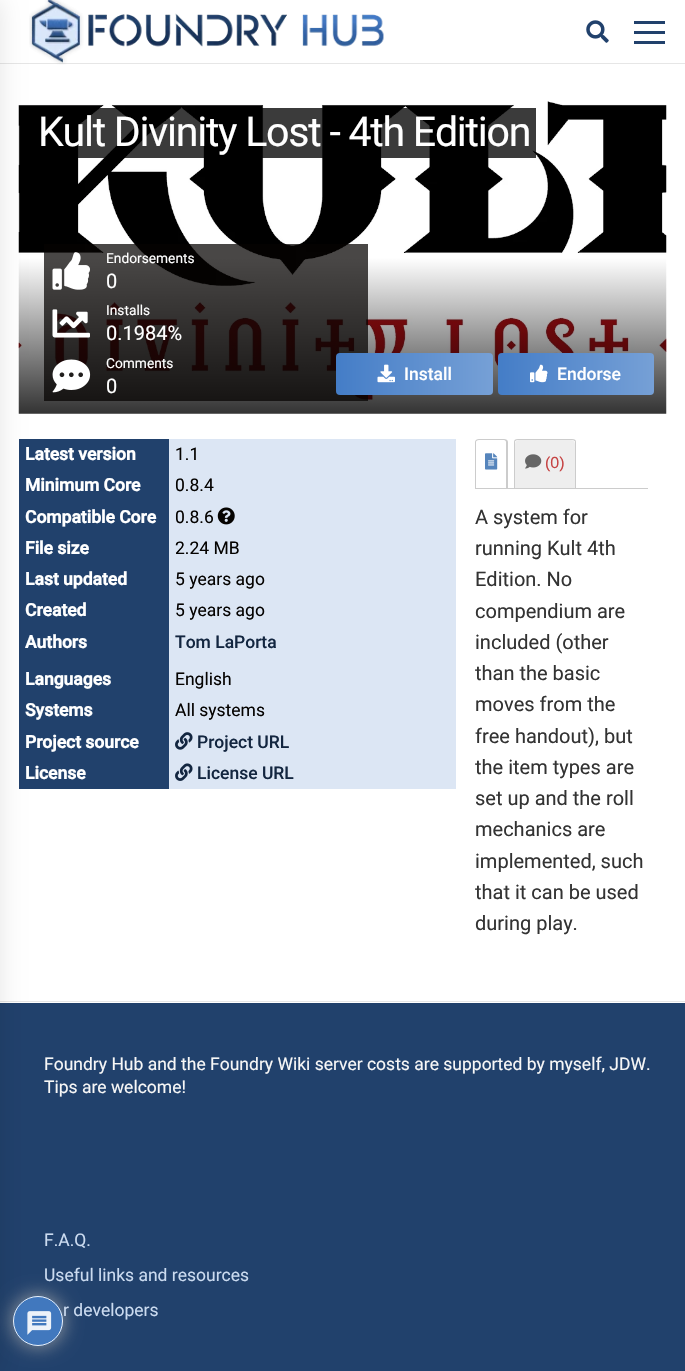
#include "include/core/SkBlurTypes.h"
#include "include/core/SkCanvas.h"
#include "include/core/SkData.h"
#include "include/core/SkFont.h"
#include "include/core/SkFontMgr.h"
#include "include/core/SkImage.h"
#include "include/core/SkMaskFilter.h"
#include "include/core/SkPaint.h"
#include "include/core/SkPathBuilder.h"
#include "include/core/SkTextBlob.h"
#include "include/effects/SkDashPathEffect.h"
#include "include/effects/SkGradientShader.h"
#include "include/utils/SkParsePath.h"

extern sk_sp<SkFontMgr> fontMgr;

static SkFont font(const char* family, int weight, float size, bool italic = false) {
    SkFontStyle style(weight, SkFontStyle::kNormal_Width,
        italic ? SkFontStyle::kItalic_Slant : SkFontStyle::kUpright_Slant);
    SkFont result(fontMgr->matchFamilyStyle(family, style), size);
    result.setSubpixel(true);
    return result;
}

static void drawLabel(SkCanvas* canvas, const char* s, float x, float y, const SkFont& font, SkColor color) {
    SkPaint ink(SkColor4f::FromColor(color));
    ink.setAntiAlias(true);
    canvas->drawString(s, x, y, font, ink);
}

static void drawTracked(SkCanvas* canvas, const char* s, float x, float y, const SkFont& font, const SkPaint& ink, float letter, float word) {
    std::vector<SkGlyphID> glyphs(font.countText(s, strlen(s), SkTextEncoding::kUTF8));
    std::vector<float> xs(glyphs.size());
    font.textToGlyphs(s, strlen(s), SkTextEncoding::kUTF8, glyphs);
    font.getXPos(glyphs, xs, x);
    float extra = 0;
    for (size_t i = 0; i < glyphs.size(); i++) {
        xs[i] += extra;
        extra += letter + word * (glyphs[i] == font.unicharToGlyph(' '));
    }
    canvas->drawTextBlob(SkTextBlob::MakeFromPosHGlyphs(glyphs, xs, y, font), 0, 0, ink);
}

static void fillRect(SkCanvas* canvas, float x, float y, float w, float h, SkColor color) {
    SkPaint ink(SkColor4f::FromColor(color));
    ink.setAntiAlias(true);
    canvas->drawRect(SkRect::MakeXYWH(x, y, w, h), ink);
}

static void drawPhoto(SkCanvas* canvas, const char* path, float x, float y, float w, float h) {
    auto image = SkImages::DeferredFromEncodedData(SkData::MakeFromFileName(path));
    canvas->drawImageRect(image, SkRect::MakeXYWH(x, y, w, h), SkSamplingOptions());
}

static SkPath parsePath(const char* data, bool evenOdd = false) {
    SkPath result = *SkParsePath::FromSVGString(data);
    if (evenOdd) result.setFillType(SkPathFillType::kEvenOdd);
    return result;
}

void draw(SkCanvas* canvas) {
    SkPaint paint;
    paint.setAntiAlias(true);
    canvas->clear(0xFFFFFFFF);
    fillRect(canvas, 0, 63, 685, 1, 0xFFE6E6E6);
    drawPhoto(canvas, "assets/img1.png", 29, 0, 355, 65);
    drawPhoto(canvas, "assets/img3.png", 18, 101, 649, 313);
    fillRect(canvas, 19, 439, 150, 350, 0xFF21416C);
    fillRect(canvas, 0, 1003, 685, 368, 0xFF21416C);
    fillRect(canvas, 0, 1001, 685, 1, 0xFFE6E6E6);
    canvas->save();
    canvas->clipPath(parsePath("M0 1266H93V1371H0ZM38 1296C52 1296 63 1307 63 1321C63 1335 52 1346 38 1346C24 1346 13 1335 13 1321C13 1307 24 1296 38 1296Z", true), true);
    paint.setColor(0xE6AAAAAA);
    paint.setMaskFilter(SkMaskFilter::MakeBlur(kNormal_SkBlurStyle, 9.5f));
    canvas->drawRoundRect(SkRect::MakeXYWH(13, 1296, 50, 50), 25, 25, paint);
    paint.setMaskFilter(nullptr);
    canvas->restore();
    paint.setColor(0xE6447DC7);
    canvas->drawCircle(38, 1321, 25, paint);
    paint.setStroke(true);
    paint.setStrokeWidth(1);
    paint.setColor(0xE6FFFFFF);
    canvas->drawCircle(38, 1321, 24.5f, paint);
    drawPhoto(canvas, "assets/img14.png", 27, 1311, 25, 24);
    paint.setStroke(false);
    paint.setColor(0x1A000000);
    paint.setMaskFilter(SkMaskFilter::MakeBlur(kNormal_SkBlurStyle, 12.5f));
    canvas->drawRect(SkRect::MakeXYWH(-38, 0, 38, 1371), paint);
    paint.setMaskFilter(nullptr);
    drawPhoto(canvas, "assets/img2.png", 586, 20, 23, 23);
    fillRect(canvas, 634, 31, 31, 3, 0xFF21416C);
    fillRect(canvas, 634, 21, 31, 3, 0xFF21416C);
    fillRect(canvas, 634, 41, 31, 3, 0xFF21416C);
    fillRect(canvas, 78, 108, 458, 50, 0xC4000000);
    SkFont font1 = font("Roboto", 400, 41.1f);
    paint.setColor(0xFFFFFFFF);
    drawTracked(canvas, "Kult Divinity Lost - 4th Edition", 38, 146, font1, paint, -1.25f, 0);
    fillRect(canvas, 44, 244, 324, 157, 0xBA050301);
    drawPhoto(canvas, "assets/img4.png", 52, 252, 38, 38);
    SkFont font2 = font("Roboto", 400, 13.75f);
    drawLabel(canvas, "Endorsements", 106, 263, font2, 0xFFFFFFFF);
    SkFont font3 = font("Roboto", 400, 20);
    drawLabel(canvas, "0", 106, 288, font3, 0xFFFFFFFF);
    drawPhoto(canvas, "assets/img5.png", 52, 309, 38, 29);
    drawLabel(canvas, "Installs", 106, 315, font2, 0xFFFFFFFF);
    drawLabel(canvas, "0.1984%", 106, 340, font3, 0xFFFFFFFF);
    drawPhoto(canvas, "assets/img6.png", 52, 359, 39, 34);
    drawLabel(canvas, "Comments", 106, 368, font2, 0xFFFFFFFF);
    drawLabel(canvas, "0", 106, 393, font3, 0xFFFFFFFF);
    {
        const SkColor colors[] = {0xFF447DC7, 0xFF76A0D6, 0xFF447DC7};
        const float stops[] = {0, 0.5f, 1};
        const SkPoint ends[] = {{336, 374}, {649, 374}};
        paint.setShader(SkGradientShader::MakeLinear(ends, colors, stops, 3, SkTileMode::kClamp));
        paint.setAlpha(255);
    }
    canvas->drawRoundRect(SkRect::MakeXYWH(336, 353, 157, 42), 4, 4, paint);
    drawPhoto(canvas, "assets/img7.png", 377, 364, 18, 19);
    SkFont font4 = font("Roboto", 500, 17.5f);
    drawLabel(canvas, "Install", 404, 380, font4, 0xFFFFFFFF);
    {
        const SkColor colors[] = {0xFF447DC7, 0xFF76A0D6, 0xFF447DC7};
        const float stops[] = {0, 0.5f, 1};
        const SkPoint ends[] = {{498, 374}, {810, 374}};
        paint.setShader(SkGradientShader::MakeLinear(ends, colors, stops, 3, SkTileMode::kClamp));
        paint.setAlpha(255);
    }
    canvas->drawRoundRect(SkRect::MakeXYWH(498, 353, 156, 42), 4, 4, paint);
    drawPhoto(canvas, "assets/img8.png", 530, 364, 18, 19);
    drawLabel(canvas, "Endorse", 557, 380, font4, 0xFFFFFFFF);
    SkFont font5 = font("Roboto", 700, 17.5f);
    drawLabel(canvas, "Latest version", 25, 460, font5, 0xFFFFFFFF);
    fillRect(canvas, 169, 439, 287, 350, 0xFFDCE6F4);
    SkFont font6 = font("Roboto", 400, 17.5f);
    drawLabel(canvas, "1.1", 175, 460, font6, 0xFF050301);
    drawLabel(canvas, "Minimum Core", 25, 491, font5, 0xFFFFFFFF);
    drawLabel(canvas, "0.8.4", 175, 491, font6, 0xFF050301);
    drawLabel(canvas, "Compatible Core", 25, 523, font5, 0xFFFFFFFF);
    drawLabel(canvas, "0.8.6", 175, 523, font6, 0xFF050301);
    drawPhoto(canvas, "assets/img9.png", 217, 507, 18, 18);
    drawLabel(canvas, "File size", 25, 554, font5, 0xFFFFFFFF);
    drawLabel(canvas, "2.24 MB", 175, 554, font6, 0xFF050301);
    drawLabel(canvas, "Last updated", 25, 585, font5, 0xFFFFFFFF);
    drawLabel(canvas, "5 years ago", 175, 585, font6, 0xFF050301);
    drawLabel(canvas, "Created", 25, 616, font5, 0xFFFFFFFF);
    drawLabel(canvas, "5 years ago", 175, 616, font6, 0xFF050301);
    drawLabel(canvas, "Authors", 25, 648, font5, 0xFFFFFFFF);
    drawLabel(canvas, "Tom LaPorta", 175, 648, font4, 0xFF132640);
    drawLabel(canvas, "Languages", 25, 685, font5, 0xFFFFFFFF);
    drawLabel(canvas, "English", 175, 685, font6, 0xFF050301);
    drawLabel(canvas, "Systems", 25, 716, font5, 0xFFFFFFFF);
    drawLabel(canvas, "All systems", 175, 716, font6, 0xFF050301);
    drawLabel(canvas, "Project source", 25, 748, font5, 0xFFFFFFFF);
    drawPhoto(canvas, "assets/img10.png", 175, 732, 18, 18);
    drawLabel(canvas, "Project URL", 197, 748, font4, 0xFF132640);
    drawLabel(canvas, "License", 25, 779, font5, 0xFFFFFFFF);
    drawPhoto(canvas, "assets/img11.png", 175, 763, 18, 18);
    drawLabel(canvas, "License URL", 197, 779, font4, 0xFF132640);
    fillRect(canvas, 475, 488, 173, 1, 0xFFCCCCCC);
    paint.setShader(nullptr);
    paint.setColor(0xFFCCCCCC);
    canvas->drawPath(parsePath("M479 439H504C506 439 508 440 508 442V488H475V442C475 440 477 439 479 439ZM479 440H504C505 440 506 441 506 442V488H476V442C476 441 477 440 479 440Z", true), paint);
    drawPhoto(canvas, "assets/img12.png", 485, 453, 13, 17);
    canvas->drawPath(parsePath("M518 439H572C575 439 576 440 576 442V489H514V442C514 440 515 439 518 439ZM518 440H572C574 440 575 441 575 442V489H515V442C515 441 516 440 518 440Z", true), paint);
    paint.setColor(0xFFEEEEEE);
    canvas->drawPath(parsePath("M519 440H571C573 440 575 442 575 444V489H515V444C515 442 517 440 519 440Z"), paint);
    fillRect(canvas, 515, 488, 60, 1, 0xFFCCCCCC);
    drawPhoto(canvas, "assets/img13.png", 525, 454, 17, 15);
    SkFont font7 = font("Liberation Sans", 400, 16);
    drawLabel(canvas, "(0)", 545, 468, font7, 0xFFC64343);
    drawLabel(canvas, "A system for", 475, 524, font3, 0xFF333333);
    drawLabel(canvas, "running Kult 4th", 475, 555, font3, 0xFF333333);
    drawLabel(canvas, "Edition. No", 475, 586, font3, 0xFF333333);
    drawLabel(canvas, "compendium are", 475, 618, font3, 0xFF333333);
    drawLabel(canvas, "included (other", 475, 649, font3, 0xFF333333);
    drawLabel(canvas, "than the basic", 475, 680, font3, 0xFF333333);
    drawLabel(canvas, "moves from the", 475, 711, font3, 0xFF333333);
    drawLabel(canvas, "free handout), but", 475, 743, font3, 0xFF333333);
    drawLabel(canvas, "the item types are", 475, 774, font3, 0xFF333333);
    drawLabel(canvas, "set up and the roll", 475, 805, font3, 0xFF333333);
    drawLabel(canvas, "mechanics are", 475, 836, font3, 0xFF333333);
    drawLabel(canvas, "implemented, such", 475, 868, font3, 0xFF333333);
    drawLabel(canvas, "that it can be used", 475, 899, font3, 0xFF333333);
    drawLabel(canvas, "during play.", 475, 930, font3, 0xFF333333);
    drawLabel(canvas, "Foundry Hub and the Foundry Wiki server costs are supported by myself, JDW.", 44, 1070, font6, 0xFFF7F7F7);
    drawLabel(canvas, "Tips are welcome!", 44, 1093, font6, 0xFFF7F7F7);
    drawLabel(canvas, "F.A.Q.", 44, 1246, font6, 0xFFCBDBF0);
    drawLabel(canvas, "Useful links and resources", 44, 1281, font6, 0xFFCBDBF0);
    drawLabel(canvas, "r developers", 63, 1316, font6, 0xFFCBDBF0);
}
